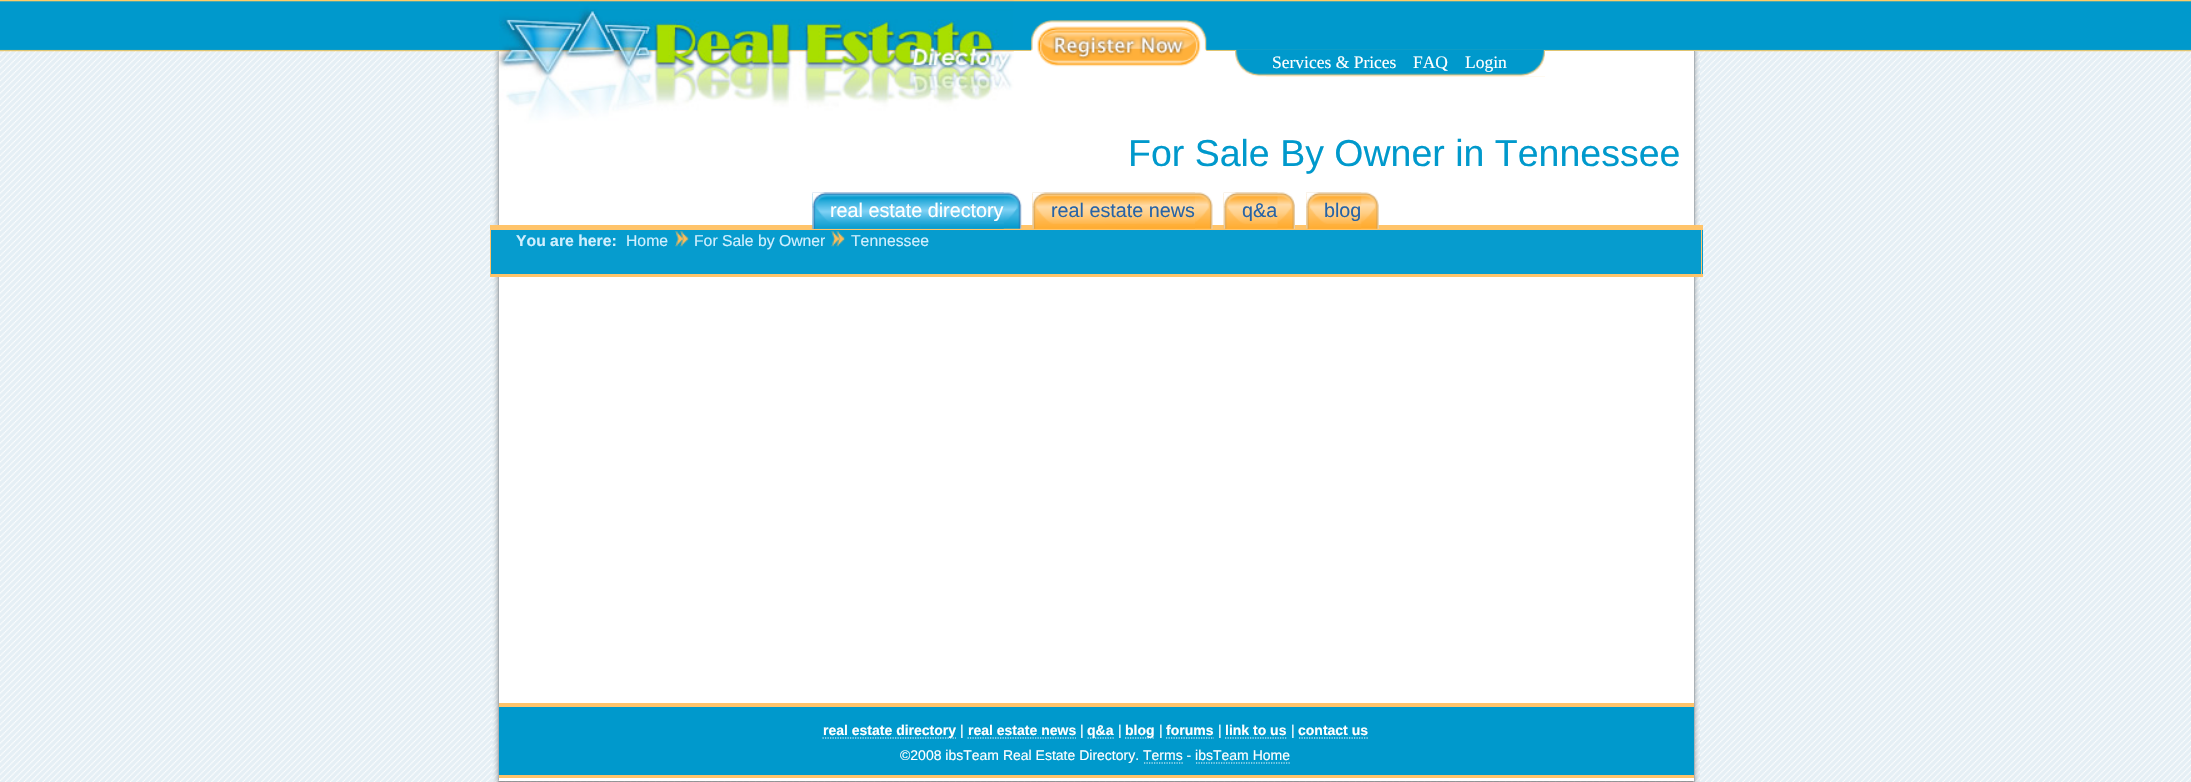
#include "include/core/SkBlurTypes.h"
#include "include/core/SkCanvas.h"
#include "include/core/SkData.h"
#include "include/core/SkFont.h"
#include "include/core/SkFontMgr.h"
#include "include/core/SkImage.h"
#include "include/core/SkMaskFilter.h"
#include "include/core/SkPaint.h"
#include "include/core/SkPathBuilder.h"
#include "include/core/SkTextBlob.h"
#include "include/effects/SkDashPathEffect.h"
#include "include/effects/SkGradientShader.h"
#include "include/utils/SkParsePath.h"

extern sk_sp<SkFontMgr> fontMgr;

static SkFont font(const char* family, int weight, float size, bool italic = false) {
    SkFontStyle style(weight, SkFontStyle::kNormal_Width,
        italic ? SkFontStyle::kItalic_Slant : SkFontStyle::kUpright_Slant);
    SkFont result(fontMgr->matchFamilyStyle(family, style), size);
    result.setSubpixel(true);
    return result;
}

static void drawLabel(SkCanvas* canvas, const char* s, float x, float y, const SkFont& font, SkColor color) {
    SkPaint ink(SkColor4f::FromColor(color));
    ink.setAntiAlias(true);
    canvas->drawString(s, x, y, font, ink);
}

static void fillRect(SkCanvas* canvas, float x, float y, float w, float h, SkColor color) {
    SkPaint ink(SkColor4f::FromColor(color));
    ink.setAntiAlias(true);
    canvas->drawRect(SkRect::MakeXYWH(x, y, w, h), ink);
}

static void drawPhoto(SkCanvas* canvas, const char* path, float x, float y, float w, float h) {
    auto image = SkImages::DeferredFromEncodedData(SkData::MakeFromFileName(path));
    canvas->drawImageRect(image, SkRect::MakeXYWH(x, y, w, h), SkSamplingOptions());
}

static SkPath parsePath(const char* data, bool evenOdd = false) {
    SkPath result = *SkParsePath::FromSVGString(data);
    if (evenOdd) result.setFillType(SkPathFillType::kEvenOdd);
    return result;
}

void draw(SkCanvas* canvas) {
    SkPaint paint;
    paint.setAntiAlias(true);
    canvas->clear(0xFFFFFFFF);
    drawPhoto(canvas, "assets/img1.png", 0, 51, 2191, 731);
    drawPhoto(canvas, "assets/img2.png", 0, 0, 2191, 52);
    drawPhoto(canvas, "assets/img3.png", 492, 51, 1208, 731);
    fillRect(canvas, 499, 51, 1195, 731, 0xFFFFFFFF);
    fillRect(canvas, 1694, 51, 1, 731, 0xFFAAB1B6);
    fillRect(canvas, 498, 51, 1, 731, 0xFFAAB1B6);
    drawPhoto(canvas, "assets/img4.png", 498, 0, 516, 125);
    drawPhoto(canvas, "assets/img5.png", 1235, 50, 310, 27);
    drawPhoto(canvas, "assets/img6.png", 1266, 50, 279, 27);
    drawPhoto(canvas, "assets/img7.png", 1031, 20, 176, 47);
    SkFont font1 = font("Liberation Serif", 400, 17.5f);
    drawLabel(canvas, "Services & Prices", 1272, 68, font1, 0xFFFFFFFF);
    drawLabel(canvas, "FAQ", 1413, 68, font1, 0xFFFFFFFF);
    drawLabel(canvas, "Login", 1465, 68, font1, 0xFFFFFFFF);
    SkFont font2 = font("Liberation Sans", 400, 37.5f);
    drawLabel(canvas, "For Sale By Owner in Tennessee", 1128, 166, font2, 0xFF0099CC);
    fillRect(canvas, 490, 225, 1213, 5, 0xFFFFC46A);
    drawPhoto(canvas, "assets/img8.png", 812, 192, 210, 37);
    drawPhoto(canvas, "assets/img9.png", 812, 192, 192, 37);
    drawPhoto(canvas, "assets/img10.png", 1032, 192, 181, 37);
    drawPhoto(canvas, "assets/img11.png", 1032, 192, 163, 37);
    drawPhoto(canvas, "assets/img12.png", 1223, 192, 72, 37);
    drawPhoto(canvas, "assets/img13.png", 1223, 192, 55, 37);
    drawPhoto(canvas, "assets/img14.png", 1306, 192, 73, 37);
    SkFont font3 = font("Liberation Sans", 400, 19.75f);
    drawLabel(canvas, "real estate directory", 830, 217, font3, 0xFFFFFFFF);
    drawLabel(canvas, "real estate news", 1051, 217, font3, 0xFF2763A5);
    drawPhoto(canvas, "assets/img15.png", 1306, 192, 56, 37);
    drawLabel(canvas, "q&a", 1242, 217, font3, 0xFF2763A5);
    drawLabel(canvas, "blog", 1324, 217, font3, 0xFF2763A5);
    fillRect(canvas, 491, 230, 1212, 44, 0xFF069CCE);
    fillRect(canvas, 1701, 225, 1, 51, 0xFFFFC46A);
    fillRect(canvas, 490, 274, 1213, 3, 0xFFFFC46A);
    fillRect(canvas, 490, 225, 1, 51, 0xFFFFC46A);
    SkFont font4 = font("Liberation Sans", 700, 15.75f);
    drawLabel(canvas, "You are here:", 516, 246, font4, 0xFFD0EFFE);
    SkFont font5 = font("Liberation Sans", 400, 15.75f);
    drawLabel(canvas, "Home", 626, 246, font5, 0xFFD0EFFE);
    drawPhoto(canvas, "assets/img16.png", 675, 231, 14, 16);
    drawLabel(canvas, "For Sale by Owner", 694, 246, font5, 0xFFD0EFFE);
    drawPhoto(canvas, "assets/img17.png", 831, 231, 14, 16);
    drawLabel(canvas, "Tennessee", 851, 246, font5, 0xFFD0EFFE);
    drawPhoto(canvas, "assets/img18.png", 498, 780, 1196, 2);
    fillRect(canvas, 499, 707, 1195, 68, 0xFF0099CC);
    fillRect(canvas, 499, 703, 1195, 4, 0xFFFFC46A);
    fillRect(canvas, 499, 775, 1195, 3, 0xFFFFC46A);
    paint.setStroke(true);
    paint.setStrokeWidth(1.2f);
    paint.setColor(0xFFFFFFFF);
    paint.setPathEffect(SkDashPathEffect::Make({{1.25f, 1.25f}}, 0));
    canvas->drawPath(parsePath("M822.5 738H956"), paint);
    paint.setPathEffect(nullptr);
    SkFont font6 = font("Liberation Sans", 700, 14);
    drawLabel(canvas, "real estate directory", 823, 735, font6, 0xFFFFFFFF);
    SkFont font7 = font("Liberation Sans", 400, 14);
    drawLabel(canvas, "|", 960, 735, font7, 0xFFFFFFFF);
    drawLabel(canvas, "real estate news", 968, 735, font6, 0xFFFFFFFF);
    paint.setPathEffect(SkDashPathEffect::Make({{1.25f, 1.25f}}, 0));
    canvas->drawPath(parsePath("M967.5 738H1076"), paint);
    paint.setPathEffect(nullptr);
    drawLabel(canvas, "|", 1080, 735, font7, 0xFFFFFFFF);
    paint.setPathEffect(SkDashPathEffect::Make({{1.25f, 1.25f}}, 0));
    canvas->drawPath(parsePath("M1087.5 738H1114"), paint);
    paint.setPathEffect(nullptr);
    drawLabel(canvas, "q&a", 1087, 735, font6, 0xFFFFFFFF);
    drawLabel(canvas, "|", 1118, 735, font7, 0xFFFFFFFF);
    paint.setPathEffect(SkDashPathEffect::Make({{1.25f, 1.25f}}, 0));
    canvas->drawPath(parsePath("M1125 738H1155"), paint);
    paint.setPathEffect(nullptr);
    drawLabel(canvas, "blog", 1125, 735, font6, 0xFFFFFFFF);
    drawLabel(canvas, "|", 1159, 735, font7, 0xFFFFFFFF);
    drawLabel(canvas, "forums", 1166, 735, font6, 0xFFFFFFFF);
    paint.setPathEffect(SkDashPathEffect::Make({{1.25f, 1.25f}}, 0));
    canvas->drawPath(parsePath("M1166 738H1214"), paint);
    paint.setPathEffect(nullptr);
    drawLabel(canvas, "|", 1218, 735, font7, 0xFFFFFFFF);
    drawLabel(canvas, "link to us", 1225, 735, font6, 0xFFFFFFFF);
    paint.setPathEffect(SkDashPathEffect::Make({{1.25f, 1.25f}}, 0));
    canvas->drawPath(parsePath("M1225 738H1287.5"), paint);
    paint.setPathEffect(nullptr);
    drawLabel(canvas, "|", 1291, 735, font7, 0xFFFFFFFF);
    drawLabel(canvas, "contact us", 1298, 735, font6, 0xFFFFFFFF);
    paint.setPathEffect(SkDashPathEffect::Make({{1.25f, 1.25f}}, 0));
    canvas->drawPath(parsePath("M1299 738H1369"), paint);
    paint.setPathEffect(nullptr);
    drawLabel(canvas, "©2008 ibsTeam Real Estate Directory. Terms - ibsTeam Home", 900, 760, font7, 0xFFFFFFFF);
    paint.setPathEffect(SkDashPathEffect::Make({{1.25f, 1.25f}}, 0));
    canvas->drawPath(parsePath("M1144 763H1184"), paint);
    paint.setPathEffect(nullptr);
    paint.setPathEffect(SkDashPathEffect::Make({{1.25f, 1.25f}}, 0));
    canvas->drawPath(parsePath("M1196 763H1291"), paint);
    paint.setPathEffect(nullptr);
}
